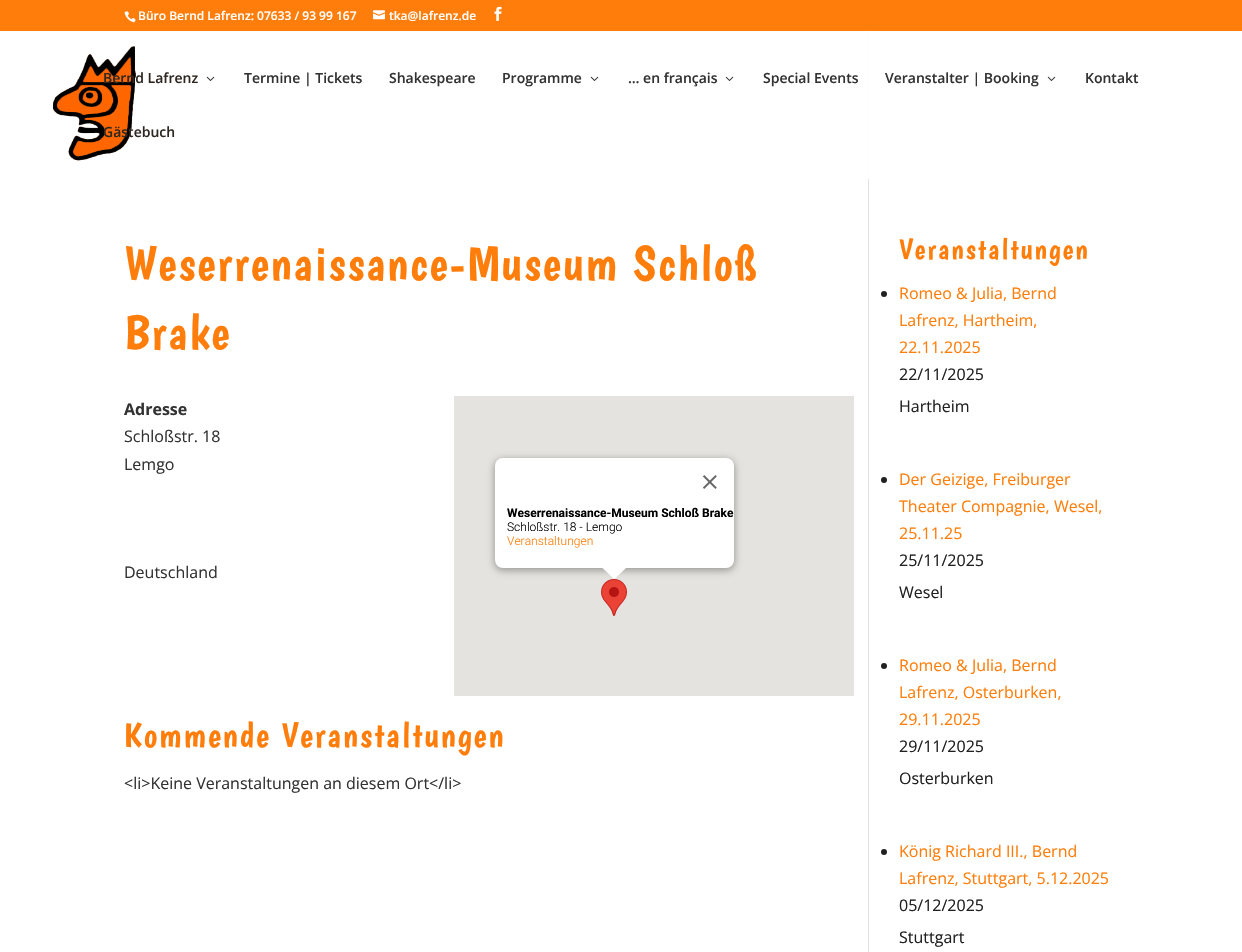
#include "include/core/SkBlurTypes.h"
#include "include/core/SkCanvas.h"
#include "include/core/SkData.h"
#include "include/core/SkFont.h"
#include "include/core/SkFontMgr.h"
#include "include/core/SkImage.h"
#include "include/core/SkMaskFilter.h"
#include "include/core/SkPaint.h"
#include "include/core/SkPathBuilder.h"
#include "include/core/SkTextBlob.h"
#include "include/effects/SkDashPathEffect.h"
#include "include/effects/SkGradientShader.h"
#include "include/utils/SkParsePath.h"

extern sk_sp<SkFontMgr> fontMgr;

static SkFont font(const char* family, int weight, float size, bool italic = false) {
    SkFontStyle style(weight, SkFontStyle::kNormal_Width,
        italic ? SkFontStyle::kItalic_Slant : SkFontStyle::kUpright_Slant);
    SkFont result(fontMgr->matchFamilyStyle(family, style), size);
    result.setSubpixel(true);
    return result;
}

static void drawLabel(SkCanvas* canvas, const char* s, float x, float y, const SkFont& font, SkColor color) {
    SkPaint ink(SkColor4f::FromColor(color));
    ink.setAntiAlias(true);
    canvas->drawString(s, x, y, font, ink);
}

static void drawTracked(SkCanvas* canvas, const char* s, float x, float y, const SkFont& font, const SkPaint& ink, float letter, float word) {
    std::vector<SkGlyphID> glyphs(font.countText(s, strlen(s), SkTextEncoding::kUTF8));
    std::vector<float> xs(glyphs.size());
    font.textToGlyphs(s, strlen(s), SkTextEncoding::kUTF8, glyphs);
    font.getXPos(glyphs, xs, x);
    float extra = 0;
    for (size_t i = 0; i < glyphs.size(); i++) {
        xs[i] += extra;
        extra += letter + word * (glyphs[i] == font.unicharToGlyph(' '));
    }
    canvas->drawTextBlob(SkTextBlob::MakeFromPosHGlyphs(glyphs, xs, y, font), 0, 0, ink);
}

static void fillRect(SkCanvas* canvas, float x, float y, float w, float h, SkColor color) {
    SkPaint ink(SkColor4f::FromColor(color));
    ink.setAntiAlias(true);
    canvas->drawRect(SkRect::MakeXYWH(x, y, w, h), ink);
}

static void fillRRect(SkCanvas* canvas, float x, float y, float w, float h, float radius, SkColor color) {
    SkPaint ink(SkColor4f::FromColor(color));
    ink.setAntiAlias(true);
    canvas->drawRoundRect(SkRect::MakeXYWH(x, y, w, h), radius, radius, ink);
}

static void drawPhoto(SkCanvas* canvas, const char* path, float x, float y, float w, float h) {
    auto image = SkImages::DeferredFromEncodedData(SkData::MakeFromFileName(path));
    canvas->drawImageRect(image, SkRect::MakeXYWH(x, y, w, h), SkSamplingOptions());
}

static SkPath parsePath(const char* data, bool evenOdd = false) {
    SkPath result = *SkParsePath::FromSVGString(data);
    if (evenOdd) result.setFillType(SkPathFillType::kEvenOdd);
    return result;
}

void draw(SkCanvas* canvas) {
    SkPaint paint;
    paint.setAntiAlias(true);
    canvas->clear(0xFFFFFFFF);
    fillRect(canvas, 0, 0, 1242, 31, 0xFFFF7E0B);
    drawPhoto(canvas, "assets/img1.png", 124, 11, 12, 12);
    SkFont font1 = font("Open Sans", 600, 12);
    drawLabel(canvas, "Büro Bernd Lafrenz: 07633 / 93 99 167", 138, 20, font1, 0xFFFFFFFF);
    drawPhoto(canvas, "assets/img2.png", 373, 10, 12, 10);
    drawLabel(canvas, "tka@lafrenz.de", 389, 20, font1, 0xFFFFFFFF);
    drawPhoto(canvas, "assets/img3.png", 494, 6, 8, 15);
    drawPhoto(canvas, "assets/img4.png", 52, 46, 84, 115);
    SkFont font2 = font("Open Sans", 600, 14);
    drawLabel(canvas, "Bernd Lafrenz", 103, 83, font2, 0xFF2F2721);
    drawPhoto(canvas, "assets/img5.png", 206, 76, 9, 5);
    drawLabel(canvas, "Termine | Tickets", 244, 83, font2, 0xFF333333);
    drawLabel(canvas, "Shakespeare", 389, 83, font2, 0xFF333333);
    drawLabel(canvas, "Programme", 502, 83, font2, 0xFF333333);
    drawPhoto(canvas, "assets/img5.png", 590, 76, 9, 5);
    drawLabel(canvas, "… en français", 628, 83, font2, 0xFF333333);
    drawPhoto(canvas, "assets/img5.png", 725, 76, 9, 5);
    drawLabel(canvas, "Special Events", 763, 83, font2, 0xFF333333);
    drawLabel(canvas, "Veranstalter | Booking", 885, 83, font2, 0xFF333333);
    drawPhoto(canvas, "assets/img5.png", 1047, 76, 9, 5);
    drawLabel(canvas, "Kontakt", 1085, 83, font2, 0xFF333333);
    drawLabel(canvas, "Gästebuch", 103, 137, font2, 0xFF2F2721);
    fillRect(canvas, 868, 179, 1, 773, 0xFFE2E2E2);
    fillRect(canvas, 868, 31, 1, 148, 0xFFFCFCFC);
    SkFont font3 = font("Boogaloo", 400, 49);
    paint.setColor(0xFFFF7E0B);
    drawTracked(canvas, "Weserrenaissance-Museum Schloß", 124, 280, font3, paint, 2, 0);
    drawTracked(canvas, "Brake", 124, 349, font3, paint, 2, 0);
    SkFont font4 = font("Open Sans", 700, 16);
    drawLabel(canvas, "Adresse", 124, 415, font4, 0xFF333333);
    SkFont font5 = font("Open Sans", 400, 16);
    drawLabel(canvas, "Schloßstr. 18", 124, 442, font5, 0xFF333333);
    drawLabel(canvas, "Lemgo", 124, 470, font5, 0xFF333333);
    drawLabel(canvas, "Deutschland", 124, 578, font5, 0xFF333333);
    fillRect(canvas, 454, 396, 400, 300, 0xFFE5E3DF);
    drawPhoto(canvas, "assets/img7.png", 601, 579, 26, 37);
    paint.setColor(0x4D000000);
    paint.setMaskFilter(SkMaskFilter::MakeBlur(kNormal_SkBlurStyle, 3.5f));
    canvas->drawRoundRect(SkRect::MakeXYWH(494, 459, 241, 112), 9, 9, paint);
    paint.setMaskFilter(nullptr);
    fillRRect(canvas, 495, 458, 239, 110, 8, 0xFFFFFFFF);
    drawPhoto(canvas, "assets/img6.png", 703, 475, 14, 14);
    SkFont font6 = font("Roboto", 700, 12);
    drawLabel(canvas, "Weserrenaissance-Museum Schloß Brake", 507, 517, font6, 0xFF000000);
    SkFont font7 = font("Roboto", 300, 12);
    drawLabel(canvas, "Schloßstr. 18 - Lemgo", 507, 531, font7, 0xFF000000);
    drawLabel(canvas, "Veranstaltungen", 507, 545, font7, 0xFFFF7E0B);
    paint.setColor(0xFFFFFFFF);
    canvas->drawPath(parsePath("M602 567.5L627 567L614.5 579H614Z"), paint);
    SkFont font8 = font("Boogaloo", 400, 35);
    paint.setColor(0xFFFF7E0B);
    drawTracked(canvas, "Kommende Veranstaltungen", 124, 747, font8, paint, 2, 0);
    drawLabel(canvas, "<li>Keine Veranstaltungen an diesem Ort</li>", 124, 789, font5, 0xFF333333);
    SkFont font9 = font("Boogaloo", 400, 29);
    drawTracked(canvas, "Veranstaltungen", 899, 259, font9, paint, 2, 0);
    paint.setColor(0xFF212121);
    canvas->drawCircle(884, 294, 3, paint);
    drawLabel(canvas, "Romeo & Julia, Bernd", 899, 299, font5, 0xFFFF7E0B);
    drawLabel(canvas, "Lafrenz, Hartheim,", 899, 326, font5, 0xFFFF7E0B);
    drawLabel(canvas, "22.11.2025", 899, 353, font5, 0xFFFF7E0B);
    drawLabel(canvas, "22/11/2025", 899, 380, font5, 0xFF212121);
    drawLabel(canvas, "Hartheim", 899, 412, font5, 0xFF212121);
    canvas->drawCircle(884, 480, 3, paint);
    drawLabel(canvas, "Der Geizige, Freiburger", 899, 485, font5, 0xFFFF7E0B);
    drawLabel(canvas, "Theater Compagnie, Wesel,", 899, 512, font5, 0xFFFF7E0B);
    drawLabel(canvas, "25.11.25", 899, 539, font5, 0xFFFF7E0B);
    drawLabel(canvas, "25/11/2025", 899, 566, font5, 0xFF212121);
    drawLabel(canvas, "Wesel", 899, 598, font5, 0xFF212121);
    canvas->drawCircle(884, 666, 3, paint);
    drawLabel(canvas, "Romeo & Julia, Bernd", 899, 671, font5, 0xFFFF7E0B);
    drawLabel(canvas, "Lafrenz, Osterburken,", 899, 698, font5, 0xFFFF7E0B);
    drawLabel(canvas, "29.11.2025", 899, 725, font5, 0xFFFF7E0B);
    drawLabel(canvas, "29/11/2025", 899, 752, font5, 0xFF212121);
    drawLabel(canvas, "Osterburken", 899, 784, font5, 0xFF212121);
    canvas->drawCircle(884, 852, 3, paint);
    drawLabel(canvas, "König Richard III., Bernd", 899, 857, font5, 0xFFFF7E0B);
    drawLabel(canvas, "Lafrenz, Stuttgart, 5.12.2025", 899, 884, font5, 0xFFFF7E0B);
    drawLabel(canvas, "05/12/2025", 899, 911, font5, 0xFF212121);
    drawLabel(canvas, "Stuttgart", 899, 943, font5, 0xFF212121);
}
